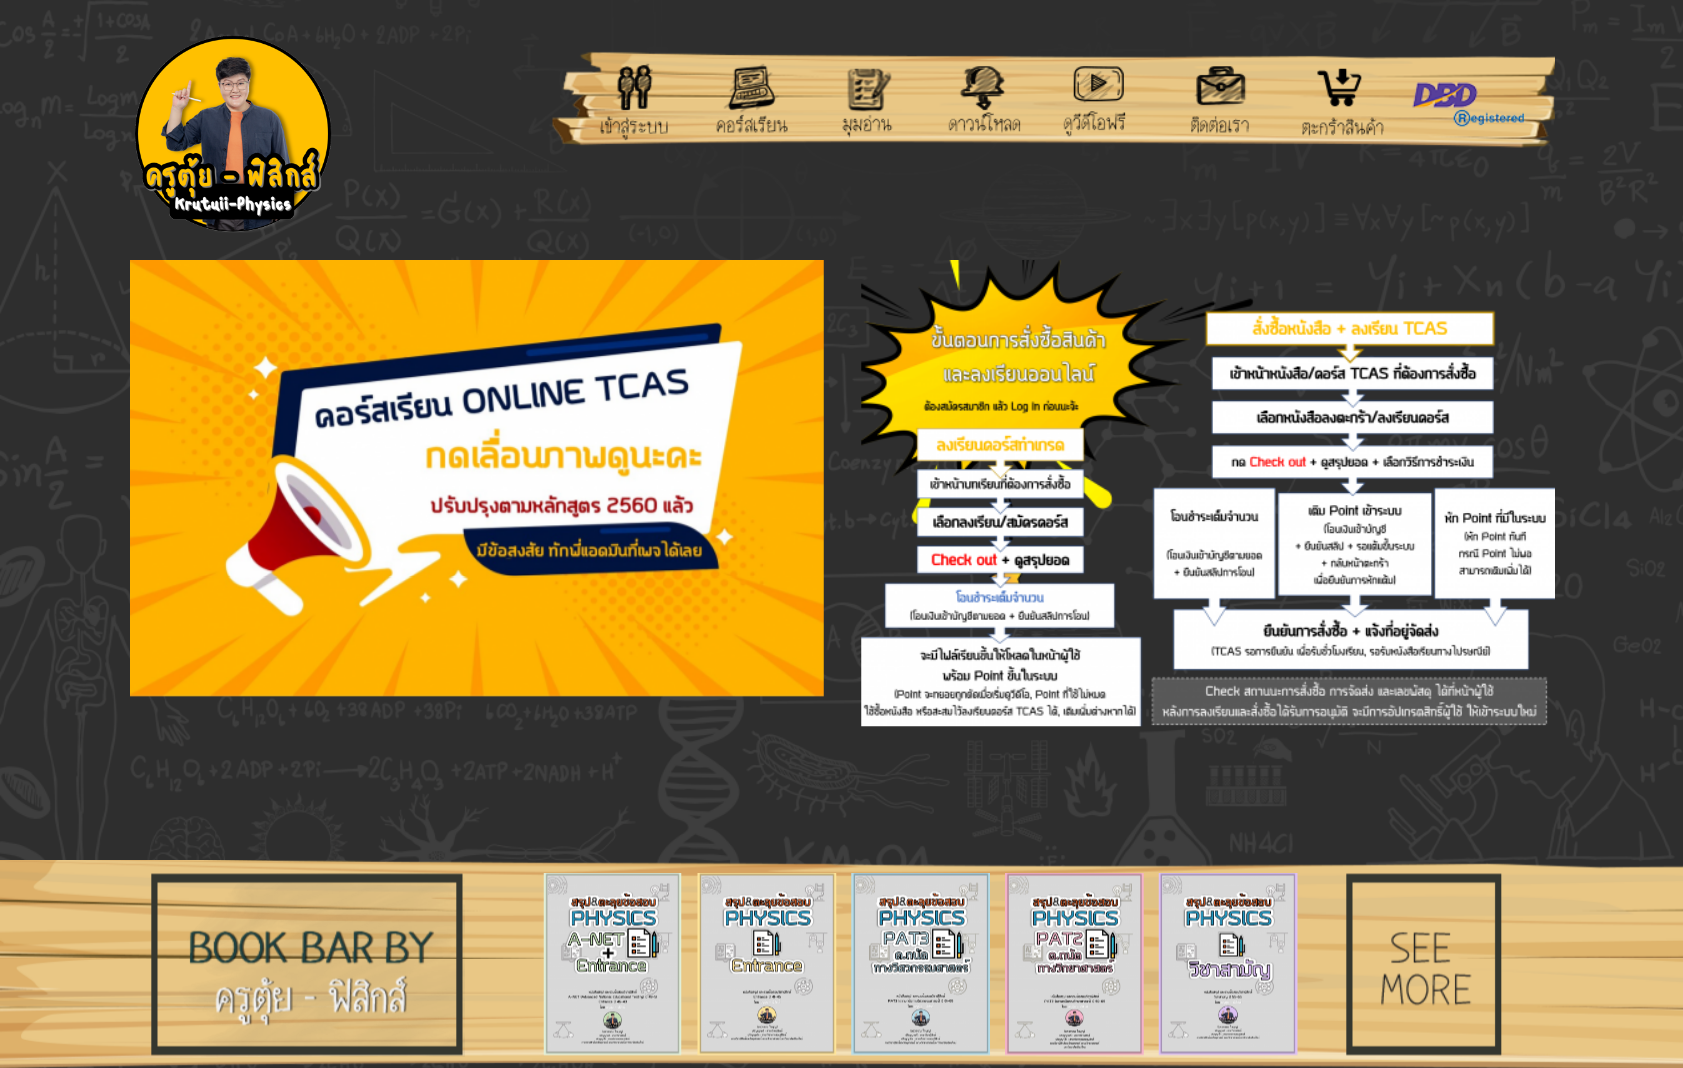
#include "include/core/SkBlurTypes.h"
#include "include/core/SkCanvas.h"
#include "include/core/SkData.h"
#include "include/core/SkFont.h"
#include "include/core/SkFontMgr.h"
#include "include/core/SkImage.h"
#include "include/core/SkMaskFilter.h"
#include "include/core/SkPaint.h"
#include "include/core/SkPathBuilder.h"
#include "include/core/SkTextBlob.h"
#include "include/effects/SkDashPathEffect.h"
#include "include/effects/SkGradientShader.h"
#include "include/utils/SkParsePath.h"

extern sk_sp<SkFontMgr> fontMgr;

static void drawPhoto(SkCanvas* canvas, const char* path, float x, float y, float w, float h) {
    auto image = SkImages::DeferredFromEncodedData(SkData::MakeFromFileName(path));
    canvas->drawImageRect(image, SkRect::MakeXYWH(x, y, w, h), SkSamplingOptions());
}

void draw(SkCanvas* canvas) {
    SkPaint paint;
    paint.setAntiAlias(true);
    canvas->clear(0xFFFFFFFF);
    drawPhoto(canvas, "assets/img1.png", 0, 0, 1683, 1068);
    drawPhoto(canvas, "assets/img2.png", 135, 35, 197, 198);
    drawPhoto(canvas, "assets/img3.png", 552, 51, 1003, 97);
    drawPhoto(canvas, "assets/img4.png", 600, 63, 68, 78);
    drawPhoto(canvas, "assets/img5.png", 716, 63, 72, 70);
    drawPhoto(canvas, "assets/img6.png", 842, 68, 51, 70);
    drawPhoto(canvas, "assets/img7.png", 948, 66, 73, 67);
    drawPhoto(canvas, "assets/img8.png", 1063, 66, 63, 71);
    drawPhoto(canvas, "assets/img9.png", 1191, 66, 58, 68);
    drawPhoto(canvas, "assets/img10.png", 1302, 68, 82, 69);
    drawPhoto(canvas, "assets/img11.png", 1412, 82, 112, 45);
    drawPhoto(canvas, "assets/img12.png", 130, 260, 694, 437);
    drawPhoto(canvas, "assets/img13.png", 861, 260, 694, 467);
    drawPhoto(canvas, "assets/img14.png", 0, 860, 1683, 208);
    drawPhoto(canvas, "assets/img15.png", 151, 873, 314, 184);
    drawPhoto(canvas, "assets/img16.png", 543, 873, 139, 183);
    drawPhoto(canvas, "assets/img17.png", 697, 873, 140, 183);
    drawPhoto(canvas, "assets/img18.png", 851, 873, 139, 183);
    drawPhoto(canvas, "assets/img19.png", 1005, 873, 139, 183);
    drawPhoto(canvas, "assets/img20.png", 1158, 873, 140, 183);
    drawPhoto(canvas, "assets/img21.png", 1346, 873, 156, 183);
}
